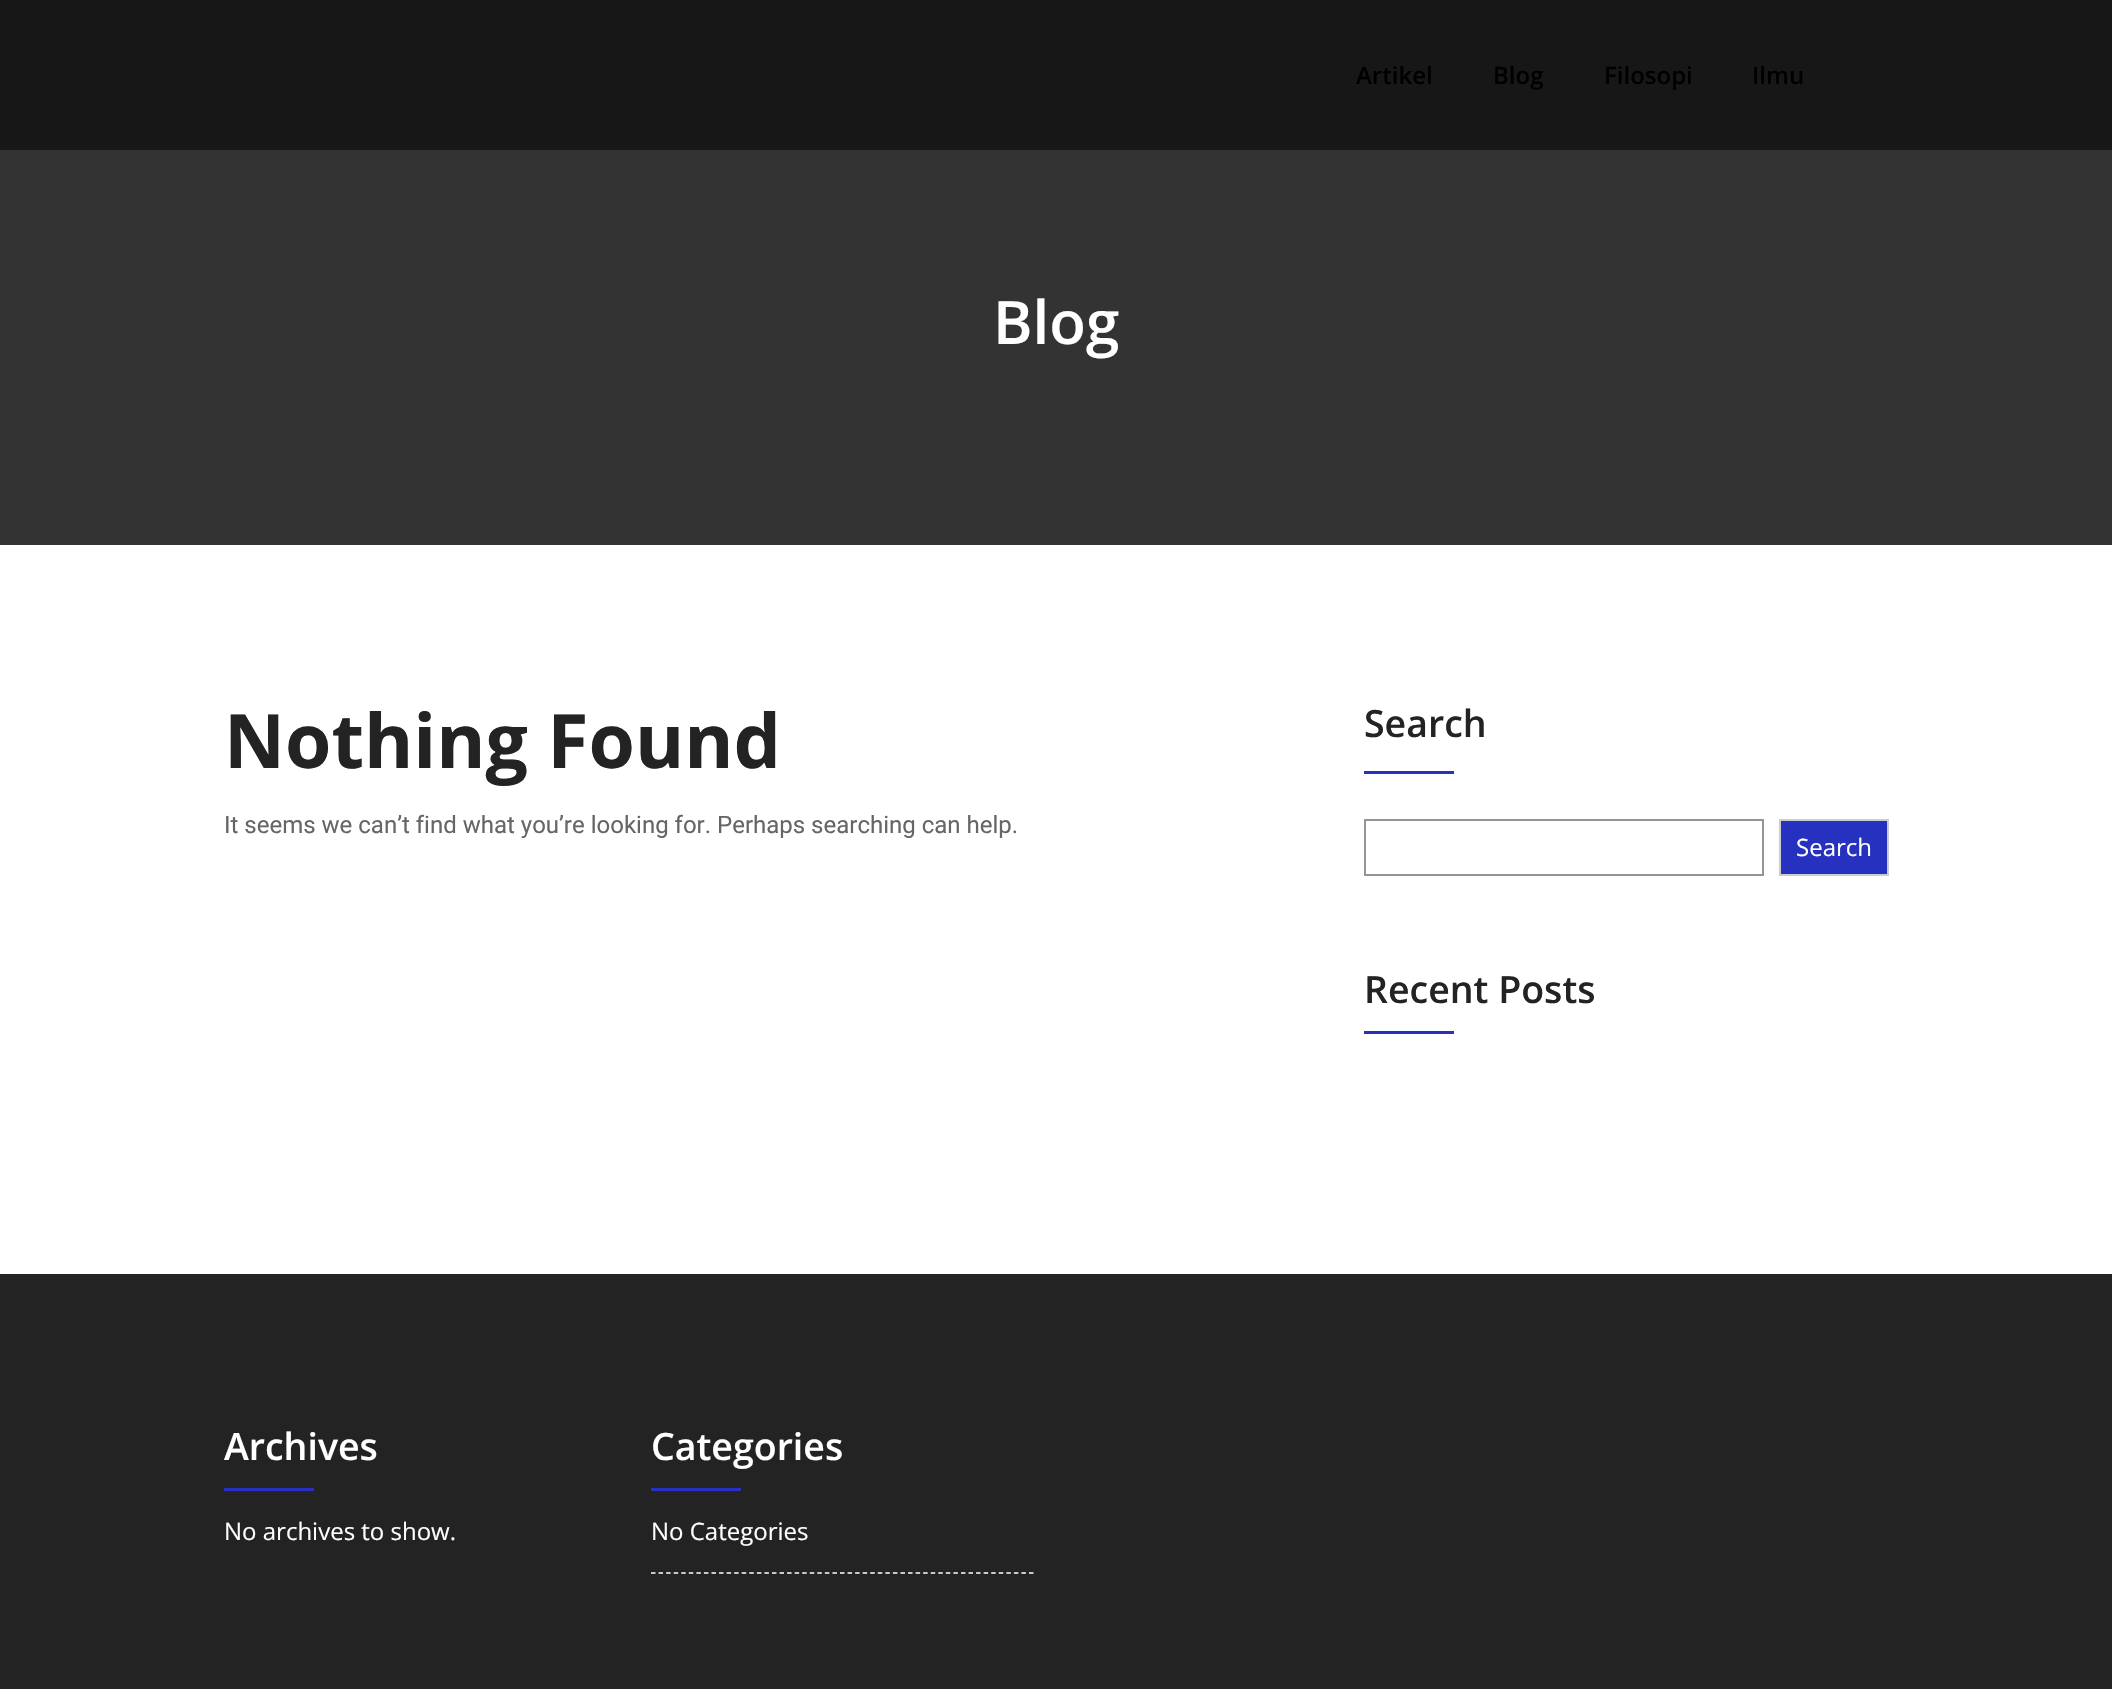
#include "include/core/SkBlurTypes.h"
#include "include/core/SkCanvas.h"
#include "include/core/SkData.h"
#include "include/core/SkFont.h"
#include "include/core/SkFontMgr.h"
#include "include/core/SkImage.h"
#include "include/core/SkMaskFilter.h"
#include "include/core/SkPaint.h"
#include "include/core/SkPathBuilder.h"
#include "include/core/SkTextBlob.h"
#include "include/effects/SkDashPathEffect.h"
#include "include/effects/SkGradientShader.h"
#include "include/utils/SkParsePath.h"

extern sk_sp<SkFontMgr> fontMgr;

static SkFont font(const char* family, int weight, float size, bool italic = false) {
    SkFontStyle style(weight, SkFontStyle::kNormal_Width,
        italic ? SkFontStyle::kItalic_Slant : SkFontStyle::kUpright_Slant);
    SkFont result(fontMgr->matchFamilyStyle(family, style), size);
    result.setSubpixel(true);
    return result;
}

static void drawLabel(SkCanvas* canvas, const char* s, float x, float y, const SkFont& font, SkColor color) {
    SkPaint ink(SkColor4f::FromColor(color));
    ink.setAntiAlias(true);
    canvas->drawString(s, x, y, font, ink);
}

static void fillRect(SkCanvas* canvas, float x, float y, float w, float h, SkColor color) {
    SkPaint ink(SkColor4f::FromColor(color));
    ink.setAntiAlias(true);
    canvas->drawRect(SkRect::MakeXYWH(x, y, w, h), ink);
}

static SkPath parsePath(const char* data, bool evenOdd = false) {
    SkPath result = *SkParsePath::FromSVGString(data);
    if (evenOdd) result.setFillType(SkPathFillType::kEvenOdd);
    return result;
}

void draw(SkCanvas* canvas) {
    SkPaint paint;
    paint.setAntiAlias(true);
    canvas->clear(0xFFFFFFFF);
    fillRect(canvas, 0, 0, 2112, 150, 0xFF171717);
    SkFont font1 = font("Open Sans", 600, 24);
    drawLabel(canvas, "Artikel", 1356, 84, font1, 0xFF000000);
    drawLabel(canvas, "Blog", 1493, 84, font1, 0xFF000000);
    drawLabel(canvas, "Filosopi", 1604, 84, font1, 0xFF000000);
    drawLabel(canvas, "Ilmu", 1752, 84, font1, 0xFF000000);
    fillRect(canvas, 0, 150, 2112, 395, 0xFF333333);
    SkFont font2 = font("Open Sans", 600, 60);
    drawLabel(canvas, "Blog", 993, 344, font2, 0xFFFFFFFF);
    SkFont font3 = font("Open Sans", 700, 75);
    drawLabel(canvas, "Nothing Found", 224, 768, font3, 0xFF232323);
    SkFont font4 = font("Roboto", 400, 24);
    drawLabel(canvas, "It seems we can’t find what you’re looking for. Perhaps searching can help.", 224, 833, font4, 0xFF666666);
    SkFont font5 = font("Open Sans", 600, 37.5f);
    drawLabel(canvas, "Search", 1364, 737, font5, 0xFF232323);
    fillRect(canvas, 1364, 771, 90, 3, 0xFF2632BF);
    paint.setStroke(true);
    paint.setStrokeWidth(2);
    paint.setColor(0xFF949494);
    canvas->drawRect(SkRect::MakeXYWH(1365, 820, 398, 55), paint);
    paint.setStroke(false);
    paint.setColor(0xFF2632BF);
    canvas->drawRect(SkRect::MakeXYWH(1780, 820, 108, 55), paint);
    paint.setStroke(true);
    paint.setColor(0xFFCCCCCC);
    canvas->drawRect(SkRect::MakeXYWH(1780, 820, 108, 55), paint);
    SkFont font6 = font("Open Sans", 400, 24);
    drawLabel(canvas, "Search", 1796, 856, font6, 0xFFFFFFFF);
    drawLabel(canvas, "Recent Posts", 1364, 1003, font5, 0xFF232323);
    fillRect(canvas, 1364, 1031, 90, 3, 0xFF2632BF);
    fillRect(canvas, 0, 1274, 2112, 415, 0xFF232323);
    drawLabel(canvas, "Archives", 224, 1460, font5, 0xFFFFFFFF);
    fillRect(canvas, 224, 1488, 90, 3, 0xFF2632BF);
    drawLabel(canvas, "No archives to show.", 224, 1540, font6, 0xFFFFFFFF);
    drawLabel(canvas, "Categories", 651, 1460, font5, 0xFFFFFFFF);
    fillRect(canvas, 651, 1488, 90, 3, 0xFF2632BF);
    paint.setStrokeWidth(1.5f);
    paint.setColor(0xFFFFFFFF);
    paint.setPathEffect(SkDashPathEffect::Make({{4.5f, 3.06f}}, 0));
    canvas->drawPath(parsePath("M651 1573H1033.5"), paint);
    paint.setPathEffect(nullptr);
    drawLabel(canvas, "No Categories", 651, 1540, font6, 0xFFFFFFFF);
}
